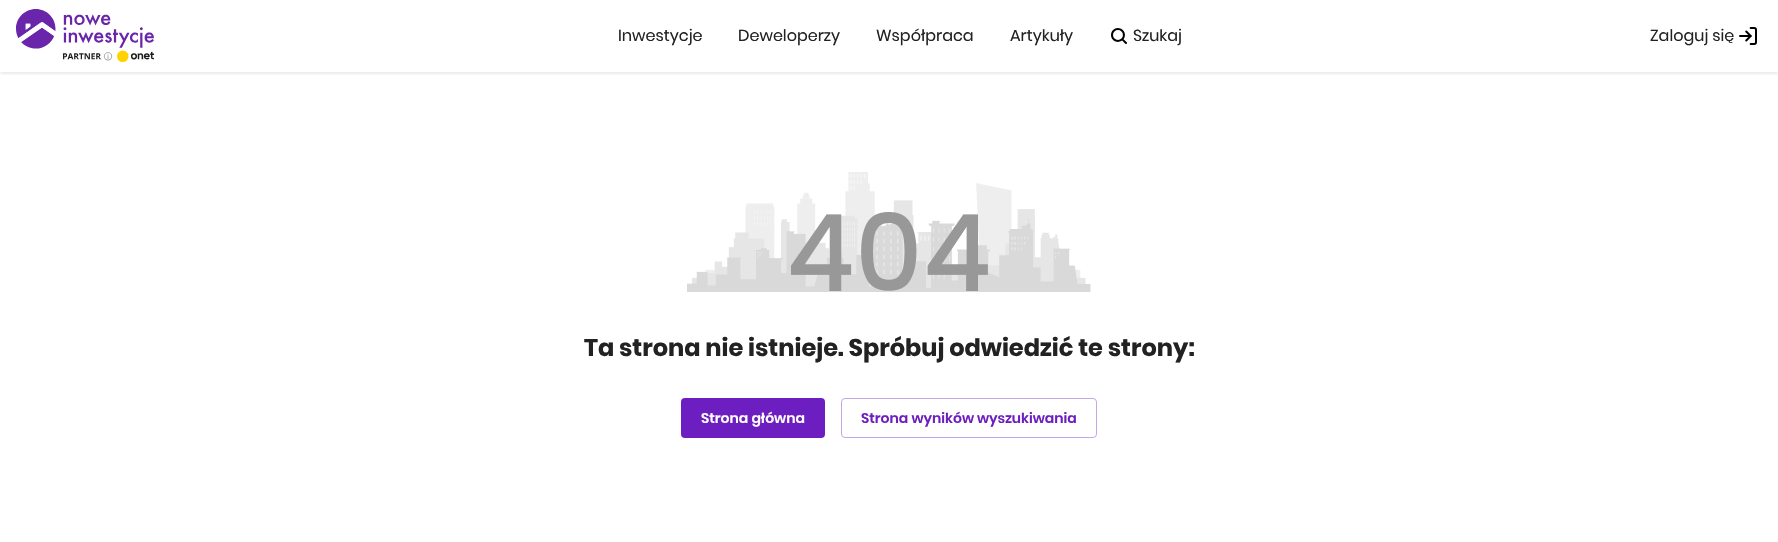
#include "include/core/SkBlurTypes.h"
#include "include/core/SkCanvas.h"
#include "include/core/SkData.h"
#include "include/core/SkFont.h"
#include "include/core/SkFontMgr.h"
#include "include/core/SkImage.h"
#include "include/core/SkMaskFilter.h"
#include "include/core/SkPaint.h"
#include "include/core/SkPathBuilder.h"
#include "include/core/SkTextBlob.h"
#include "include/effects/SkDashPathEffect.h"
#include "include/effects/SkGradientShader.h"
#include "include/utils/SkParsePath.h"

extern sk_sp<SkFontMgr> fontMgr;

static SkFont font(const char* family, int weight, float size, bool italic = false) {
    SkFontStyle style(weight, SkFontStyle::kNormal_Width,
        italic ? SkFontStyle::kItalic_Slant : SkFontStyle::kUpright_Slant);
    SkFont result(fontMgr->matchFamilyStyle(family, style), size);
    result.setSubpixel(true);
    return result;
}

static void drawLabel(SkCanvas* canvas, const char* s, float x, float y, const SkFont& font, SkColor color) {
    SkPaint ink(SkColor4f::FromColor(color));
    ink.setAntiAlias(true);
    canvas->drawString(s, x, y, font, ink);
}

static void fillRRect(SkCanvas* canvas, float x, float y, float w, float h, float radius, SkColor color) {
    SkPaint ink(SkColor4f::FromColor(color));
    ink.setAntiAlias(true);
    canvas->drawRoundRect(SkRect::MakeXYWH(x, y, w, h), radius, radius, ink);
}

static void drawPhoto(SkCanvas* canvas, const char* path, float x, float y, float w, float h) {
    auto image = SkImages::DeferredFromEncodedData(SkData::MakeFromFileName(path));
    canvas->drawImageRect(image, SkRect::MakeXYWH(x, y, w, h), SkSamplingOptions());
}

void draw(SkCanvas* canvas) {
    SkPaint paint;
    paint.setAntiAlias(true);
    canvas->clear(0xFFFFFFFF);
    canvas->save();
    canvas->clipRect(SkRect::MakeXYWH(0, 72, 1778, 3));
    paint.setColor(0x1F000000);
    paint.setMaskFilter(SkMaskFilter::MakeBlur(kNormal_SkBlurStyle, 2.5f));
    canvas->drawRect(SkRect::MakeXYWH(0, 1, 1778, 72), paint);
    paint.setMaskFilter(nullptr);
    canvas->restore();
    drawPhoto(canvas, "assets/img1.png", 16, 9, 138, 40);
    drawPhoto(canvas, "assets/img2.png", 63, 52, 50, 9);
    drawPhoto(canvas, "assets/img3.png", 117, 50, 37, 12);
    SkFont font1 = font("Poppins", 400, 16);
    drawLabel(canvas, "Inwestycje", 618, 41, font1, 0xFF222222);
    drawLabel(canvas, "Deweloperzy", 738, 41, font1, 0xFF222222);
    drawLabel(canvas, "Współpraca", 876, 41, font1, 0xFF222222);
    drawLabel(canvas, "Artykuły", 1010, 41, font1, 0xFF222222);
    drawPhoto(canvas, "assets/img4.png", 1111, 28, 16, 16);
    drawLabel(canvas, "Szukaj", 1133, 41, font1, 0xFF222222);
    drawLabel(canvas, "Zaloguj się", 1650, 41, font1, 0xFF222222);
    drawPhoto(canvas, "assets/img5.png", 1739, 27, 18, 18);
    drawPhoto(canvas, "assets/img6.png", 687, 172, 404, 120);
    SkFont font2 = font("Poppins", 700, 24);
    drawLabel(canvas, "Ta strona nie istnieje. Spróbuj odwiedzić te strony:", 584, 356, font2, 0xFF222222);
    fillRRect(canvas, 681, 398, 144, 40, 4, 0xFF6D1EC1);
    SkFont font3 = font("Poppins", 600, 14);
    drawLabel(canvas, "Strona główna", 701, 423, font3, 0xFFFFFFFF);
    paint.setStroke(true);
    paint.setStrokeWidth(1);
    paint.setColor(0xFFC5A5E6);
    canvas->drawRoundRect(SkRect::MakeXYWH(841.5f, 398.5f, 255, 39), 3.5f, 3.5f, paint);
    drawLabel(canvas, "Strona wyników wyszukiwania", 861, 423, font3, 0xFF6D1EC1);
}
